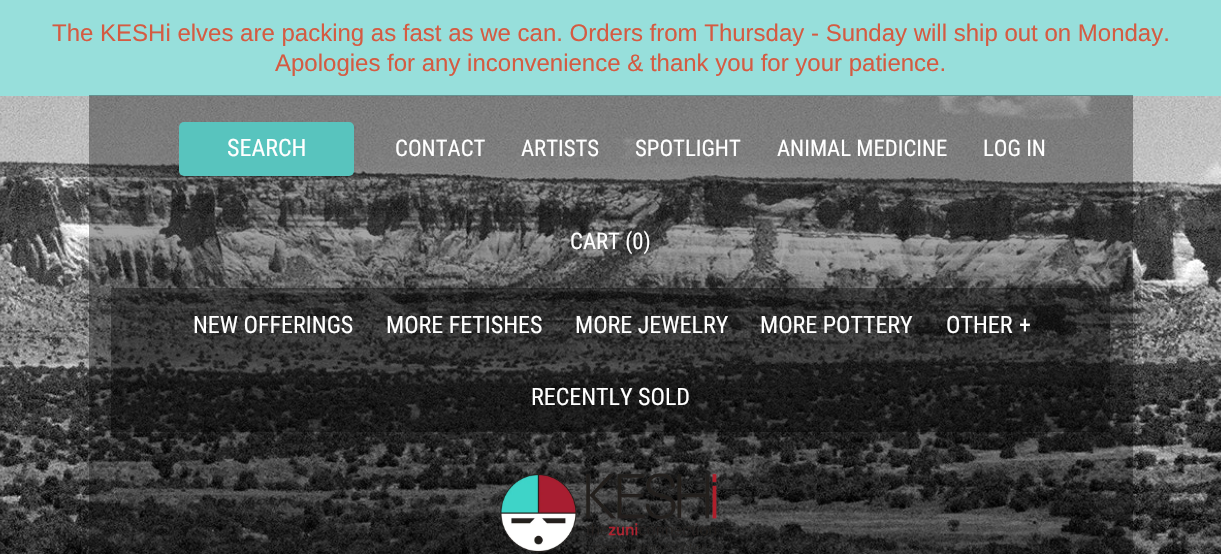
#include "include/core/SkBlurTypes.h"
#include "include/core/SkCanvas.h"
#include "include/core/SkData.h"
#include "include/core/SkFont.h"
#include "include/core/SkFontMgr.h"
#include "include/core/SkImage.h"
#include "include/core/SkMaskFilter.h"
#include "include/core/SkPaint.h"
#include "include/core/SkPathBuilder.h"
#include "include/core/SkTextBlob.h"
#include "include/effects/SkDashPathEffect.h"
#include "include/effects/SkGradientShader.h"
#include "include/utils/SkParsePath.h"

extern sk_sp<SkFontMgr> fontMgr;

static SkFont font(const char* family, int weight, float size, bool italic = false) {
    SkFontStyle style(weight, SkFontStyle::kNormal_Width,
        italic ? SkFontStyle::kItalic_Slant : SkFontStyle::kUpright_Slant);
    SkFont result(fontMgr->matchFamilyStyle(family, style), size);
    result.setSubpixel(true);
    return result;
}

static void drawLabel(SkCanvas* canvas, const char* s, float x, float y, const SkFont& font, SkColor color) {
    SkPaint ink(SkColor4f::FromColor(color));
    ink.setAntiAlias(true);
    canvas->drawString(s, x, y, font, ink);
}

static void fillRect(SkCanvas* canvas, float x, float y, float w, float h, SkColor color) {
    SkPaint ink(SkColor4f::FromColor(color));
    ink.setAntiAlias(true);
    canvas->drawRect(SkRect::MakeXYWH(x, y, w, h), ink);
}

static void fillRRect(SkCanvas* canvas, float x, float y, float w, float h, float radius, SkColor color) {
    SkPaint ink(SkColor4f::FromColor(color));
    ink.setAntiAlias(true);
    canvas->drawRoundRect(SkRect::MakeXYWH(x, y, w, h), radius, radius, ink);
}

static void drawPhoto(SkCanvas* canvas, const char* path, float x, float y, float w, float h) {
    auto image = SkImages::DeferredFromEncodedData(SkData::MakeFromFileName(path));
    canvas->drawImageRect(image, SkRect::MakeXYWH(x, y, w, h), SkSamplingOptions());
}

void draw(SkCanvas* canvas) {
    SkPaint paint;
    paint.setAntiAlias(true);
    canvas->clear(0xFFFFFFFF);
    fillRect(canvas, 0, 0, 1221, 96, 0xFF97DFDB);
    SkFont font1 = font("Liberation Sans", 400, 24);
    drawLabel(canvas, "The KESHi elves are packing as fast as we can. Orders from Thursday - Sunday will ship out on Monday.", 52, 41, font1, 0xFFD45B42);
    drawLabel(canvas, "Apologies for any inconvenience & thank you for your patience.", 275, 71, font1, 0xFFD45B42);
    drawPhoto(canvas, "assets/img1.png", 0, 96, 1221, 458);
    paint.setColor(0xFF000000);
    paint.setMaskFilter(SkMaskFilter::MakeBlur(kNormal_SkBlurStyle, 75));
    canvas->drawRect(SkRect::MakeXYWH(77, 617, 1068, 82), paint);
    paint.setMaskFilter(nullptr);
    fillRect(canvas, 89, 95, 1044, 459, 0x59000000);
    fillRRect(canvas, 179, 122, 175, 54, 5, 0xFF58C4BE);
    SkFont font2 = font("Roboto Condensed", 400, 24);
    drawLabel(canvas, "SEARCH", 227, 156, font2, 0xFFFFFFFF);
    SkFont font3 = font("Roboto Condensed", 400, 22.75f);
    drawLabel(canvas, "CONTACT", 395, 156, font3, 0xFFFFFFFF);
    drawLabel(canvas, "ARTISTS", 521, 156, font3, 0xFFFFFFFF);
    drawLabel(canvas, "SPOTLIGHT", 635, 156, font3, 0xFFFFFFFF);
    drawLabel(canvas, "ANIMAL MEDICINE", 777, 156, font3, 0xFFFFFFFF);
    drawLabel(canvas, "LOG IN", 983, 156, font3, 0xFFFFFFFF);
    drawLabel(canvas, "CART (0)", 570, 249, font3, 0xFFFFFFFF);
    fillRect(canvas, 111, 288, 999, 144, 0x59000000);
    drawLabel(canvas, "NEW OFFERINGS", 193, 333, font2, 0xFFFFFFFF);
    drawLabel(canvas, "MORE FETISHES", 386, 333, font2, 0xFFFFFFFF);
    drawLabel(canvas, "MORE JEWELRY", 575, 333, font2, 0xFFFFFFFF);
    drawLabel(canvas, "MORE POTTERY", 760, 333, font2, 0xFFFFFFFF);
    drawLabel(canvas, "OTHER", 946, 333, font2, 0xFFFFFFFF);
    drawLabel(canvas, "+", 1019, 333, font2, 0xFFFFFFFF);
    drawLabel(canvas, "RECENTLY SOLD", 531, 405, font2, 0xFFFFFFFF);
    drawPhoto(canvas, "assets/img2.png", 500, 473, 217, 80);
}
